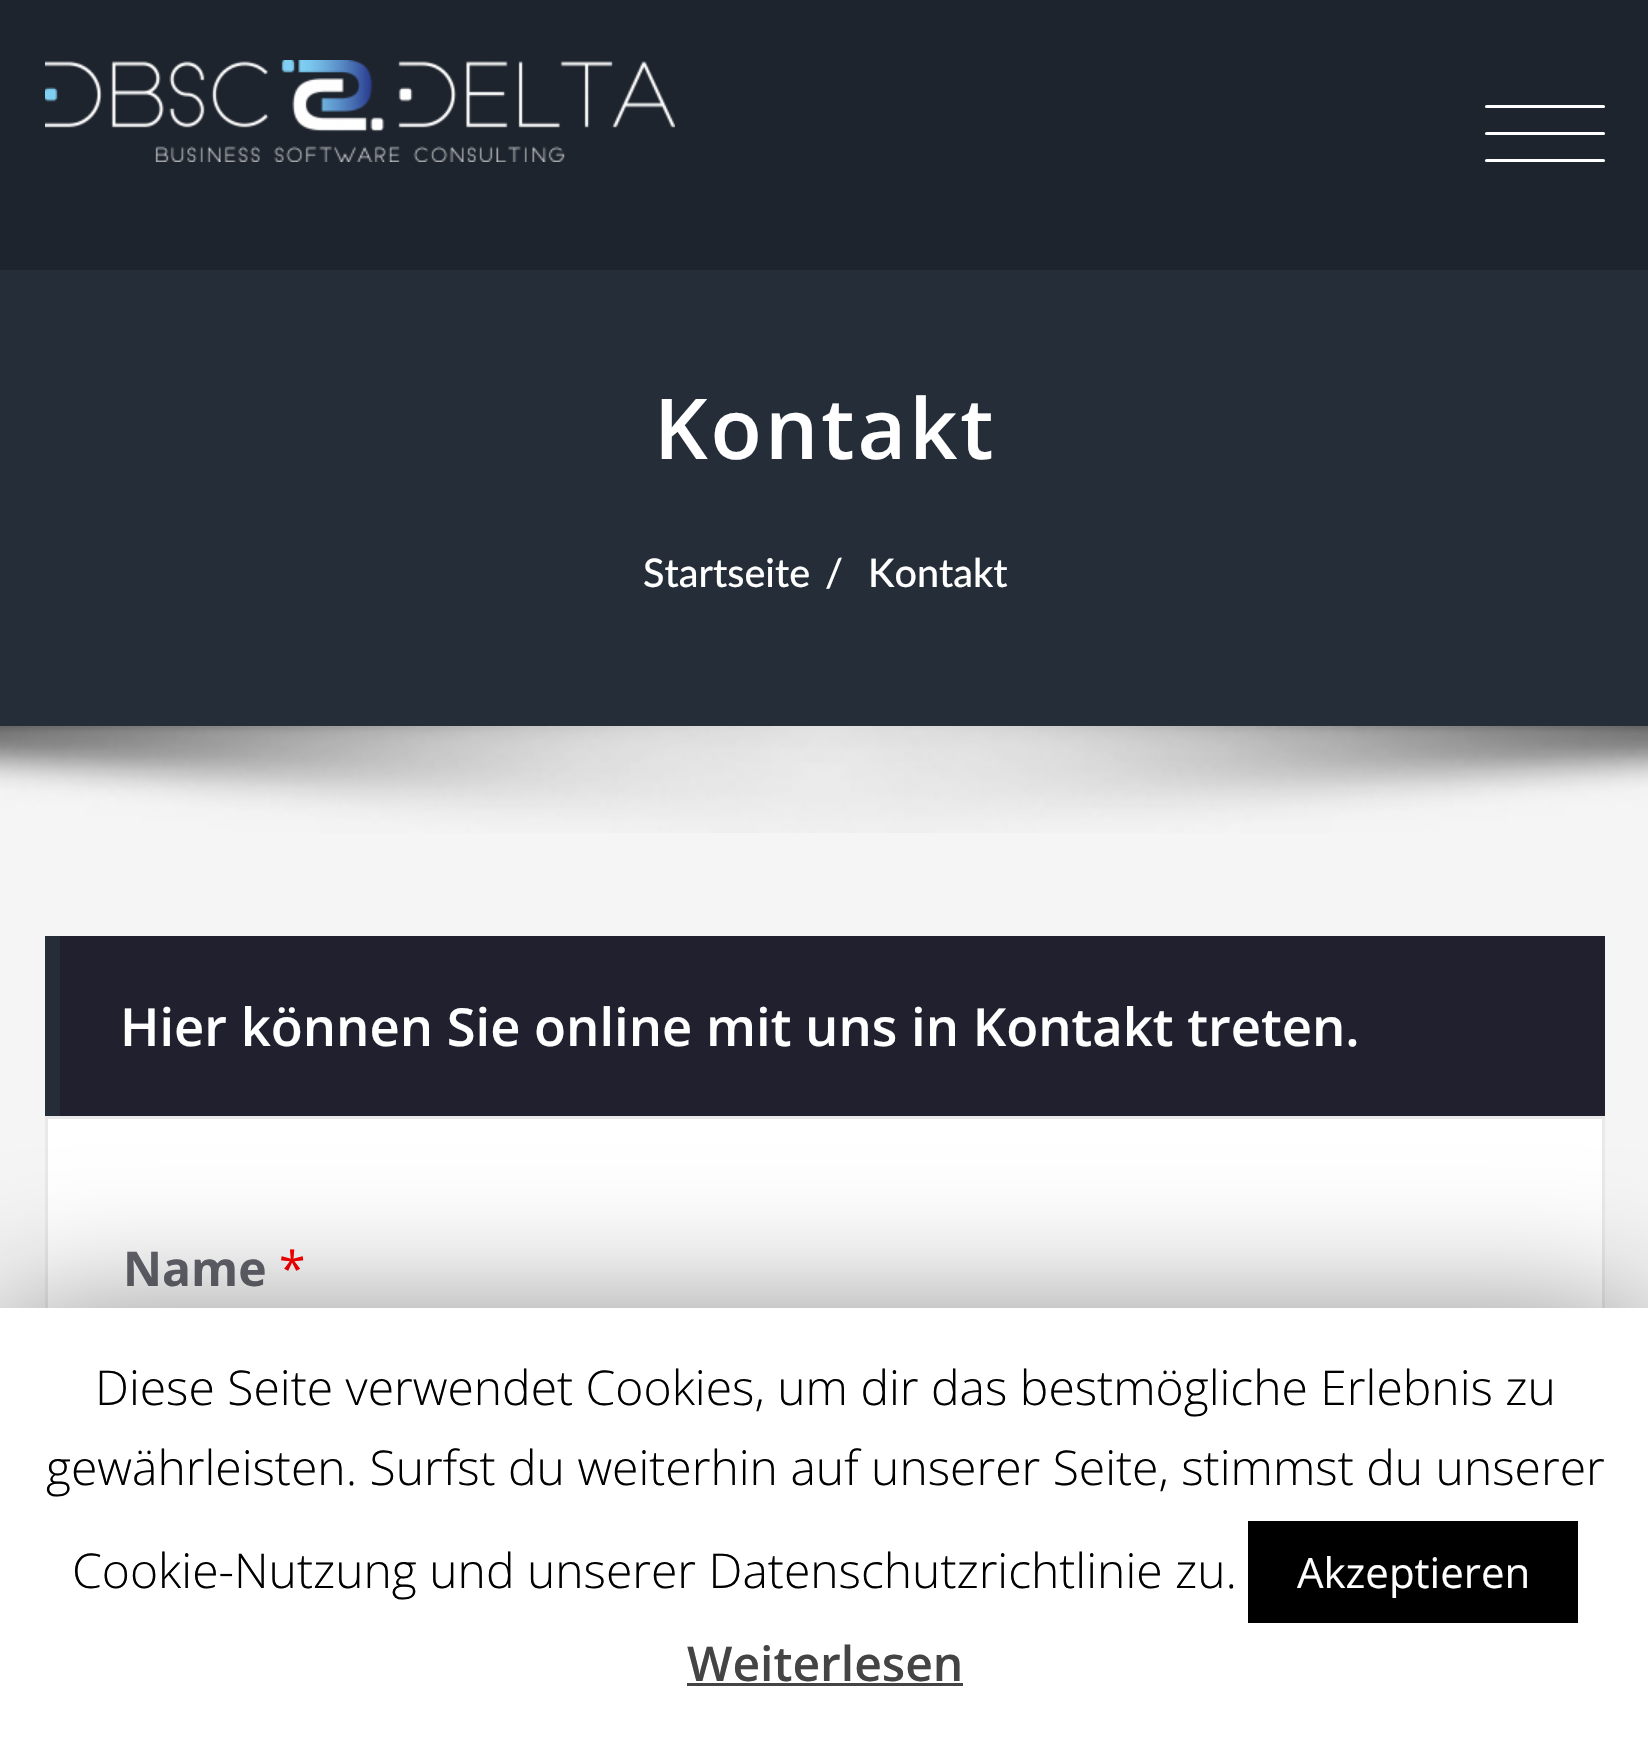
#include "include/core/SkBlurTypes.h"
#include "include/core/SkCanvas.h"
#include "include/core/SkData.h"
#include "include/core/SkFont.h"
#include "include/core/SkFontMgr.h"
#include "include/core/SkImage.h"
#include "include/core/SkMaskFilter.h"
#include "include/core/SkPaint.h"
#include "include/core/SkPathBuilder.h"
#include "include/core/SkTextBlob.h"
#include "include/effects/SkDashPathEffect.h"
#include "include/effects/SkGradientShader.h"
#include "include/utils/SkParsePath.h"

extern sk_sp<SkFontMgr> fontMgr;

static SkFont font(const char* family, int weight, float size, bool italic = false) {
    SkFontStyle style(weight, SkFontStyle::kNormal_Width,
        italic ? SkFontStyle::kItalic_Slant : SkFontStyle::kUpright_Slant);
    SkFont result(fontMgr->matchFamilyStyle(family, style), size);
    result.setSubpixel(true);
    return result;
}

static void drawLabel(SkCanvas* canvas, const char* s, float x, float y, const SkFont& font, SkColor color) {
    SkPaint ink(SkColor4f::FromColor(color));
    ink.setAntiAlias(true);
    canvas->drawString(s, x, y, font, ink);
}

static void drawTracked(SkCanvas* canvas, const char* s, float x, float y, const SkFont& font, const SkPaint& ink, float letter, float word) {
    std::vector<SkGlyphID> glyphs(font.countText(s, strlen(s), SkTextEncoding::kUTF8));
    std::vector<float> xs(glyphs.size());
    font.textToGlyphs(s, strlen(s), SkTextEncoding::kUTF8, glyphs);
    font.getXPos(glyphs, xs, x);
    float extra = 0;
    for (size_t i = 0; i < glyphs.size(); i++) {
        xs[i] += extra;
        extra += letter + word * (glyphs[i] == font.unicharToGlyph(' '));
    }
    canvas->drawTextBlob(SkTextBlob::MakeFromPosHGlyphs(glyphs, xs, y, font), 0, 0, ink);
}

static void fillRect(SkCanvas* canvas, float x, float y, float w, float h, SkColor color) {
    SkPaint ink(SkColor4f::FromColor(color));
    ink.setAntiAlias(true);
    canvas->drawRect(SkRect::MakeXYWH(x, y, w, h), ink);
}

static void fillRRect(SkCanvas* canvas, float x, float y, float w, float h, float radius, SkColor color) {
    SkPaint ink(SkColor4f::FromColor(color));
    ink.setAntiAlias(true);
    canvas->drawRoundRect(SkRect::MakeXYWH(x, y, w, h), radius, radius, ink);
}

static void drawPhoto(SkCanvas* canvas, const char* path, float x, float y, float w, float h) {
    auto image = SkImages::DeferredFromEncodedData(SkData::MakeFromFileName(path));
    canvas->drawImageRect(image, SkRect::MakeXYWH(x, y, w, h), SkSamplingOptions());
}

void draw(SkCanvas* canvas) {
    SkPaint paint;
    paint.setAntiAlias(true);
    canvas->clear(0xFFF5F5F5);
    fillRect(canvas, 0, 270, 1648, 456, 0xFF252D38);
    fillRect(canvas, 0, 0, 1648, 270, 0xFF1E242D);
    drawPhoto(canvas, "assets/img1.png", 45, 60, 630, 102);
    fillRRect(canvas, 1485, 105, 120, 3, 1.5f, 0xFFFFFFFF);
    fillRRect(canvas, 1485, 132, 120, 3, 1.5f, 0xFFFFFFFF);
    fillRRect(canvas, 1485, 159, 120, 3, 1.5f, 0xFFFFFFFF);
    SkFont font1 = font("Open Sans", 600, 84);
    paint.setColor(0xFFFFFFFF);
    drawTracked(canvas, "Kontakt", 654, 459, font1, paint, 3, 0);
    SkFont font2 = font("Lato", 500, 39.5f);
    drawLabel(canvas, "Startseite", 643, 587, font2, 0xFFFFFFFF);
    drawLabel(canvas, "/", 825, 587, font2, 0xFFFFFFFF);
    drawLabel(canvas, "Kontakt", 868, 587, font2, 0xFFFFFFFF);
    drawPhoto(canvas, "assets/img2.png", 0, 726, 1648, 107);
    fillRect(canvas, 60, 936, 1545, 180, 0xFF21202E);
    fillRect(canvas, 45, 936, 15, 180, 0xFF252D38);
    SkFont font3 = font("Open Sans", 600, 52.5f);
    drawLabel(canvas, "Hier können Sie online mit uns in Kontakt treten.", 120, 1046, font3, 0xFFFFFFFF);
    fillRect(canvas, 48, 1119, 1554, 189, 0xFFFFFFFF);
    paint.setStroke(true);
    paint.setStrokeWidth(3);
    paint.setColor(0xFFE9E9E9);
    canvas->drawRect(SkRect::MakeXYWH(46.5f, 1117.5f, 1557, 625), paint);
    SkFont font4 = font("Open Sans", 700, 48);
    drawLabel(canvas, "Name", 123, 1286, font4, 0xFF64646D);
    SkFont font5 = font("Open Sans", 400, 48);
    drawLabel(canvas, "*", 279, 1286, font5, 0xFFFF0000);
    paint.setStroke(false);
    paint.setColor(0x80000000);
    paint.setMaskFilter(SkMaskFilter::MakeBlur(kNormal_SkBlurStyle, 75));
    canvas->drawRect(SkRect::MakeXYWH(0, 1323, 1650, 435), paint);
    paint.setMaskFilter(nullptr);
    fillRect(canvas, 0, 1308, 1648, 433, 0xFFFFFFFF);
    SkFont font6 = font("Open Sans", 300, 48);
    drawLabel(canvas, "Diese Seite verwendet Cookies, um dir das bestmögliche Erlebnis zu", 95, 1405, font6, 0xFF000000);
    drawLabel(canvas, "gewährleisten. Surfst du weiterhin auf unserer Seite, stimmst du unserer", 46, 1485, font6, 0xFF000000);
    drawLabel(canvas, "Cookie-Nutzung und unserer Datenschutzrichtlinie zu.", 72, 1588, font6, 0xFF000000);
    fillRect(canvas, 1248, 1521, 330, 102, 0xFF000000);
    SkFont font7 = font("Open Sans", 400, 42);
    drawLabel(canvas, "Akzeptieren", 1297, 1588, font7, 0xFFFFFFFF);
    SkFont font8 = font("Open Sans", 600, 48);
    drawLabel(canvas, "Weiterlesen", 687, 1681, font8, 0xFF444444);
    fillRect(canvas, 687, 1683, 276, 3, 0xFF444444);
}
